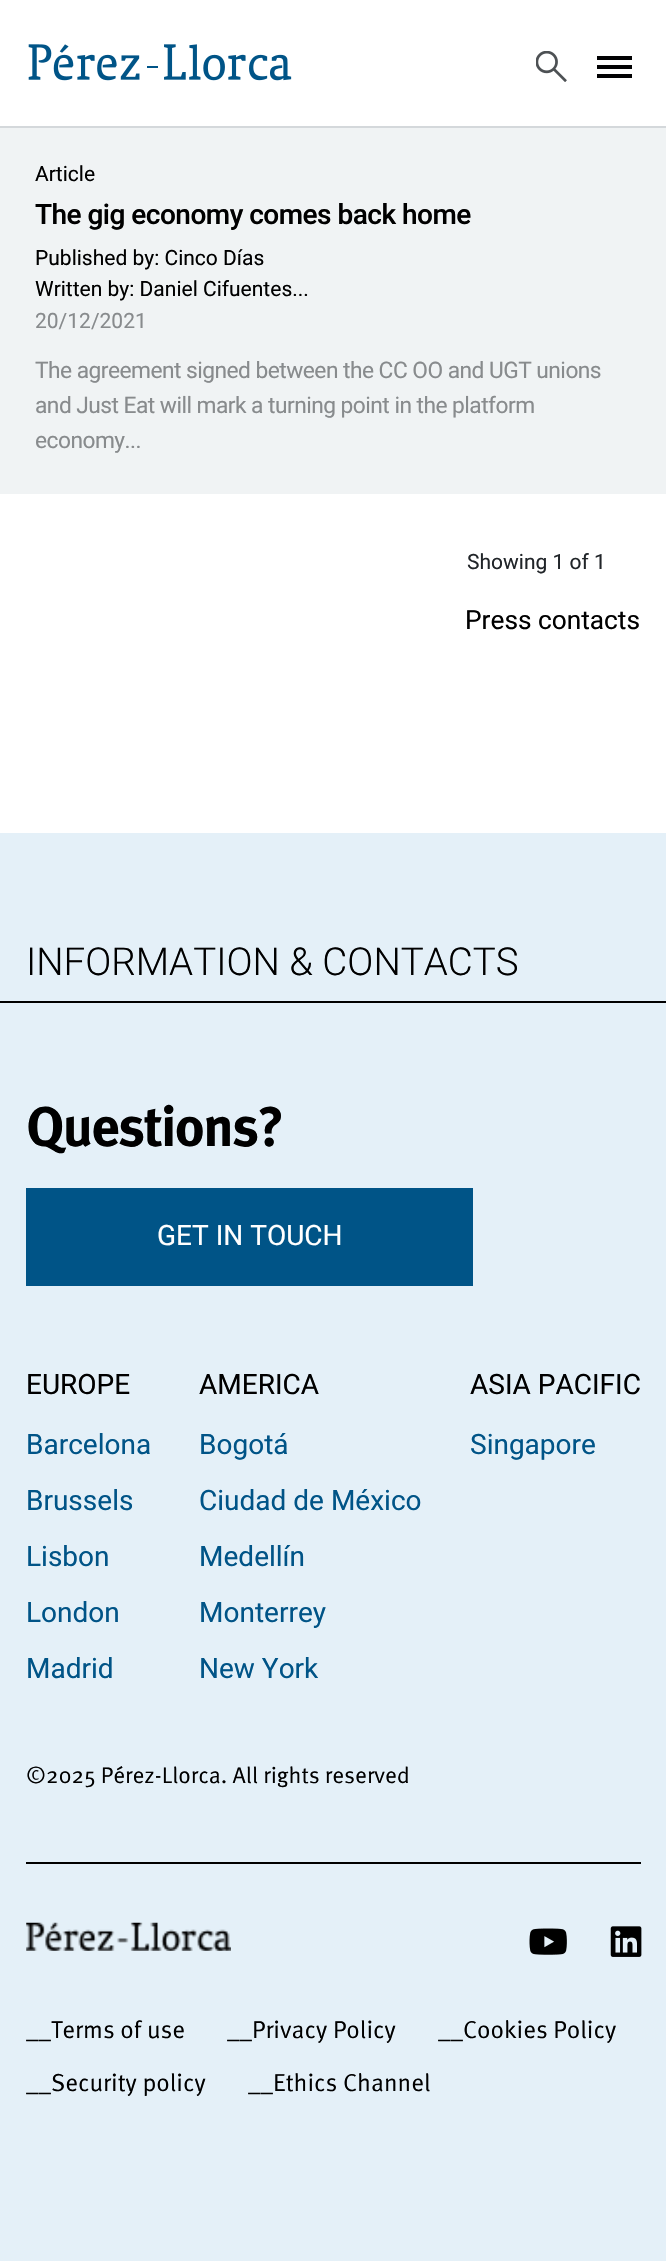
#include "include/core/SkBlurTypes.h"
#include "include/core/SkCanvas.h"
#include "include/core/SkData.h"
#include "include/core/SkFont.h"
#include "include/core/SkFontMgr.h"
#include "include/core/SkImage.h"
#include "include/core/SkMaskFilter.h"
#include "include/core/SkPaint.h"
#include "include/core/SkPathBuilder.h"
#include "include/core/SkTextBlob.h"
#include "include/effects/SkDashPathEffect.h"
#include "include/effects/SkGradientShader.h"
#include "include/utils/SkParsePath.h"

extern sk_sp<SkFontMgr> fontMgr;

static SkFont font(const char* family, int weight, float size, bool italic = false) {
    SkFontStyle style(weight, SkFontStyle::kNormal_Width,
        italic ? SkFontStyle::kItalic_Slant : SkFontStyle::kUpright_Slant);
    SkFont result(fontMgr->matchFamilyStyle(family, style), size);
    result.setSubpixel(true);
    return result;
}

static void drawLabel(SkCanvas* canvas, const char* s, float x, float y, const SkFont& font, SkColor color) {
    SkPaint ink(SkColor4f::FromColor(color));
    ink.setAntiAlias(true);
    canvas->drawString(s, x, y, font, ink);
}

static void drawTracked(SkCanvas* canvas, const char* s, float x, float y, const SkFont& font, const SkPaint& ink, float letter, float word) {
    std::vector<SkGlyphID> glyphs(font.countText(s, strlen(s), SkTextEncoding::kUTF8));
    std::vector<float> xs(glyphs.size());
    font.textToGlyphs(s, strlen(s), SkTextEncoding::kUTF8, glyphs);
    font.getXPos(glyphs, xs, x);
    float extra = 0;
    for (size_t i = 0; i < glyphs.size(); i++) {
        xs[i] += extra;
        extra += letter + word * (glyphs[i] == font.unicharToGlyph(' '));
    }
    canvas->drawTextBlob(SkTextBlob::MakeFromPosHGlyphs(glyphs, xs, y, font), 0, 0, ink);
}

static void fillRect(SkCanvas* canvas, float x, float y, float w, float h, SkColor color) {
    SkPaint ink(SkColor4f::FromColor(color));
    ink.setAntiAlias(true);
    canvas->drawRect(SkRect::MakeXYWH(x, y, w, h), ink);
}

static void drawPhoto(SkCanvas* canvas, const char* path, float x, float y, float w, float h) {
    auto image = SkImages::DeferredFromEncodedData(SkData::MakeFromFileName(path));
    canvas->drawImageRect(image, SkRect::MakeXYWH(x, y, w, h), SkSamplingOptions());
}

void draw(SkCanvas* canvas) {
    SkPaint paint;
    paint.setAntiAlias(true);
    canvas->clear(0xFFFFFFFF);
    fillRect(canvas, 0, 126, 666, 2, 0xFFD4D8DB);
    drawPhoto(canvas, "assets/img1.png", 28, 44, 264, 37);
    drawPhoto(canvas, "assets/img2.png", 536, 51, 31, 31);
    fillRect(canvas, 597, 65, 35, 4, 0xFF020203);
    fillRect(canvas, 597, 56, 35, 4, 0xFF020203);
    fillRect(canvas, 597, 74, 35, 4, 0xFF020203);
    fillRect(canvas, 0, 128, 666, 366, 0xFFF0F3F4);
    SkFont font1 = font("Heebo", 400, 21);
    drawLabel(canvas, "Article", 35, 181, font1, 0xFF000000);
    SkFont font2 = font("Heebo", 500, 28);
    paint.setColor(0xFF000000);
    drawTracked(canvas, "The gig economy comes back home", 35, 224, font2, paint, -0.53f, 0);
    drawLabel(canvas, "Published by: Cinco Días", 35, 265, font1, 0xFF000000);
    drawLabel(canvas, "Written by: Daniel Cifuentes...", 35, 296, font1, 0xFF000000);
    drawLabel(canvas, "20/12/2021", 35, 328, font1, 0xFF888B8D);
    SkFont font3 = font("Heebo", 400, 22.75f);
    paint.setColor(0xFF888B8D);
    drawTracked(canvas, "The agreement signed between the CC OO and UGT unions", 35, 378, font3, paint, -0.53f, 0);
    drawTracked(canvas, "and Just Eat will mark a turning point in the platform", 35, 413, font3, paint, -0.53f, 0);
    drawTracked(canvas, "economy...", 35, 448, font3, paint, -0.53f, 0);
    drawLabel(canvas, "Showing 1 of 1", 467, 569, font1, 0xFF212529);
    SkFont font4 = font("Heebo", 400, 26.25f);
    drawLabel(canvas, "Press contacts", 465, 629, font4, 0xFF000000);
    fillRect(canvas, 0, 833, 666, 1428, 0xFFE4F0F8);
    SkFont font5 = font("Heebo", 300, 38.5f);
    drawLabel(canvas, "INFORMATION & CONTACTS", 26, 975, font5, 0xFF000000);
    fillRect(canvas, 0, 1001, 666, 2, 0xFF000000);
    SkFont font6 = font("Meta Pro", 700, 56);
    paint.setColor(0xFF000000);
    drawTracked(canvas, "Questions?", 26, 1146, font6, paint, -2.1f, 0);
    fillRect(canvas, 26, 1188, 447, 98, 0xFF005487);
    SkFont font7 = font("Heebo", 400, 28);
    drawLabel(canvas, "GET IN TOUCH", 157, 1245, font7, 0xFFFFFFFF);
    SkFont font8 = font("Meta Pro", 400, 22.75f);
    drawLabel(canvas, "©2025 Pérez-Llorca. All rights reserved", 26, 1783, font8, 0xFF000000);
    drawLabel(canvas, "EUROPE", 26, 1394, font7, 0xFF000000);
    drawLabel(canvas, "Barcelona", 26, 1454, font7, 0xFF005487);
    drawLabel(canvas, "Brussels", 26, 1510, font7, 0xFF005487);
    drawLabel(canvas, "Lisbon", 26, 1566, font7, 0xFF005487);
    drawLabel(canvas, "London", 26, 1622, font7, 0xFF005487);
    drawLabel(canvas, "Madrid", 26, 1678, font7, 0xFF005487);
    drawLabel(canvas, "AMERICA", 199, 1394, font7, 0xFF000000);
    drawLabel(canvas, "Bogotá", 199, 1454, font7, 0xFF005487);
    drawLabel(canvas, "Ciudad de México", 199, 1510, font7, 0xFF005487);
    drawLabel(canvas, "Medellín", 199, 1566, font7, 0xFF005487);
    drawLabel(canvas, "Monterrey", 199, 1622, font7, 0xFF005487);
    drawLabel(canvas, "New York", 199, 1678, font7, 0xFF005487);
    drawLabel(canvas, "ASIA PACIFIC", 470, 1394, font7, 0xFF000000);
    drawLabel(canvas, "Singapore", 470, 1454, font7, 0xFF005487);
    fillRect(canvas, 26, 1862, 615, 2, 0xFF000000);
    drawPhoto(canvas, "assets/img3.png", 26, 1922, 205, 29);
    drawPhoto(canvas, "assets/img4.png", 529, 1928, 38, 27);
    drawPhoto(canvas, "assets/img5.png", 610, 1926, 32, 31);
    SkFont font9 = font("Meta Pro", 400, 24.5f);
    drawLabel(canvas, "__Terms of use", 26, 2038, font9, 0xFF000000);
    drawLabel(canvas, "__Privacy Policy", 227, 2038, font9, 0xFF000000);
    drawLabel(canvas, "__Cookies Policy", 438, 2038, font9, 0xFF000000);
    drawLabel(canvas, "__Security policy", 26, 2091, font9, 0xFF000000);
    drawLabel(canvas, "__Ethics Channel", 248, 2091, font9, 0xFF000000);
}
